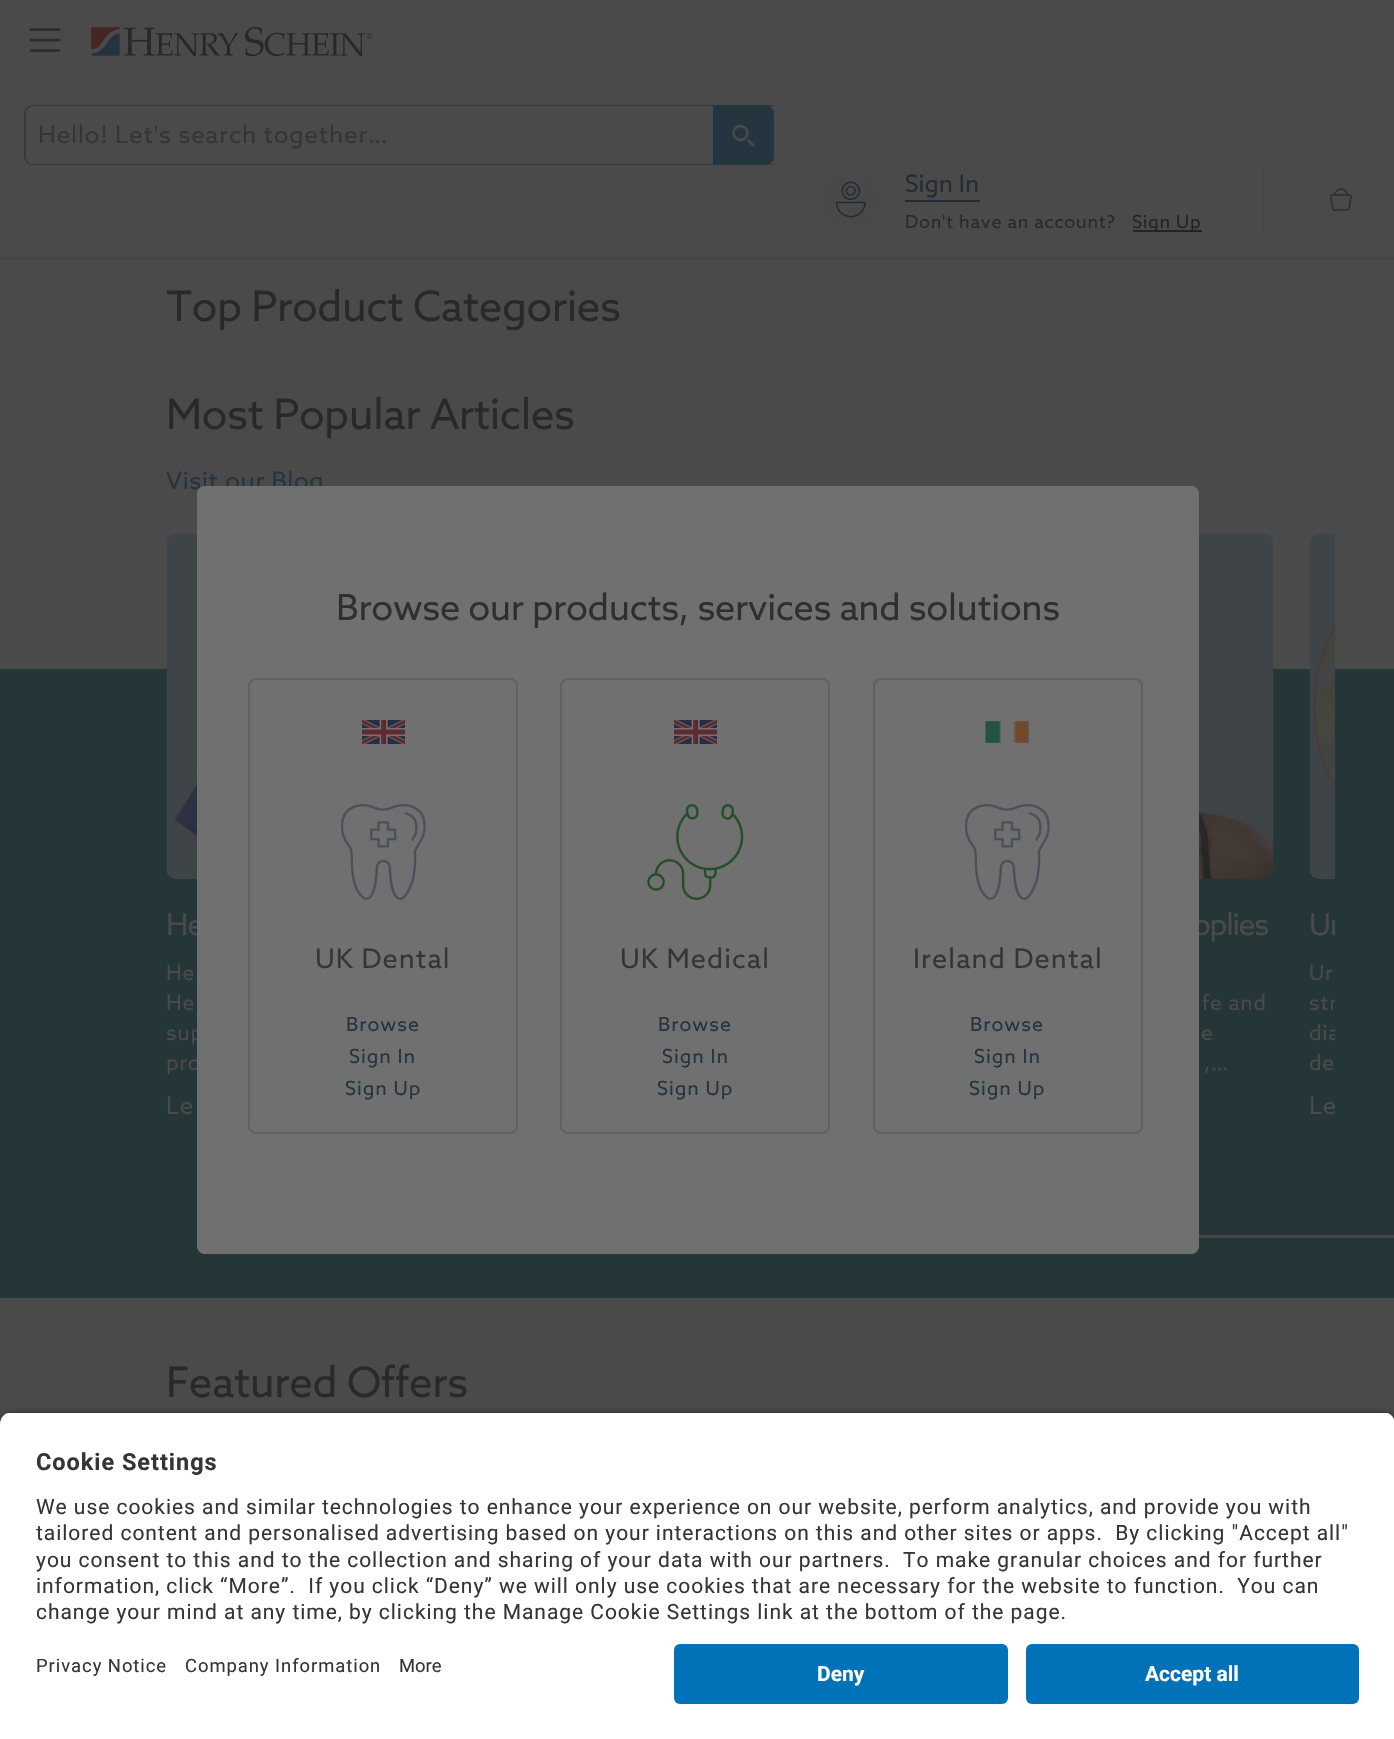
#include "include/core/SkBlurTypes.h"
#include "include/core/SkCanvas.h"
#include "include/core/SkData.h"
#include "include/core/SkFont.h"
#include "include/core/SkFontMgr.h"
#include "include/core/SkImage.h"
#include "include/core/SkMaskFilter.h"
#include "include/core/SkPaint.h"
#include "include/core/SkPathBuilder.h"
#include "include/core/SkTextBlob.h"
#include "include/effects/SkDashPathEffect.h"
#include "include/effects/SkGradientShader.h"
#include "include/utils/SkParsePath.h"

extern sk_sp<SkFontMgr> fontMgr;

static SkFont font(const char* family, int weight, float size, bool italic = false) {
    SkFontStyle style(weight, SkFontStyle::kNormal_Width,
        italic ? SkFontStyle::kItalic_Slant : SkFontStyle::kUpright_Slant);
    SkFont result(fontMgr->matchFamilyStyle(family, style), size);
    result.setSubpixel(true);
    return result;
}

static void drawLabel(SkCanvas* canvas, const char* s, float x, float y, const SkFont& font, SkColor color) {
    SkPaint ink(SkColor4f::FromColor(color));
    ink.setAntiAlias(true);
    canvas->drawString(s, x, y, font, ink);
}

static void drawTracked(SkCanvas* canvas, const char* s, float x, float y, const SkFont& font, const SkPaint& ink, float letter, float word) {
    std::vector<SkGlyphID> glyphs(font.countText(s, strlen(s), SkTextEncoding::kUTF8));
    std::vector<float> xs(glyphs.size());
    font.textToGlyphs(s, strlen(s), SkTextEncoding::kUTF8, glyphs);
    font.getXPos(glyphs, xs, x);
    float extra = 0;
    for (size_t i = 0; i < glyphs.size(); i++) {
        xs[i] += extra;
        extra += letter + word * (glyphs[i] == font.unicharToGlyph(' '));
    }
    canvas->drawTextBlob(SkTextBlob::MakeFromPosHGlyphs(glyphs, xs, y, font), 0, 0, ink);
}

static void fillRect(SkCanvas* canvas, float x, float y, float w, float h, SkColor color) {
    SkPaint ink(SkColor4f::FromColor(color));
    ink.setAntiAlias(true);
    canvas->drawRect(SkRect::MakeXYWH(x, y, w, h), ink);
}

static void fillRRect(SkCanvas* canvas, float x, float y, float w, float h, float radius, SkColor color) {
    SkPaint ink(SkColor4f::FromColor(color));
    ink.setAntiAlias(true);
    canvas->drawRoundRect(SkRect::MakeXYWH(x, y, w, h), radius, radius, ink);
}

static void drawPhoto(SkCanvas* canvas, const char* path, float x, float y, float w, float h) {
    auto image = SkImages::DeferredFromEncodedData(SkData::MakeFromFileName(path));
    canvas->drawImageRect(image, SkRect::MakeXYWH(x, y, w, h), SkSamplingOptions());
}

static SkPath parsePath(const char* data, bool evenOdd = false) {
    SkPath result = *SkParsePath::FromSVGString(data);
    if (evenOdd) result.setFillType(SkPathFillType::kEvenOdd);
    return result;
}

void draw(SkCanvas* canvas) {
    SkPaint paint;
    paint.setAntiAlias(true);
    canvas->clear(0xFF4A4A4A);
    drawPhoto(canvas, "assets/img1.png", 29, 28, 32, 24);
    drawPhoto(canvas, "assets/img2.png", 91, 27, 282, 30);
    fillRect(canvas, 0, 257, 1394, 2, 0xFF464646);
    paint.setColor(0xFF393939);
    canvas->drawPath(parsePath("M33 105H774V165H33C28 165 24 161 24 156V114C24 109 28 105 33 105ZM33 106H774V164H33C29 164 26 160 26 156V114C26 110 29 106 33 106Z", true), paint);
    SkFont font1 = font("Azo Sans", 400, 24);
    paint.setColor(0xFF353535);
    drawTracked(canvas, "Hello! Let's search together…", 38, 143, font1, paint, 0.85f, 0);
    paint.setColor(0xFF243540);
    canvas->drawPath(parsePath("M713 105H765C770 105 774 109 774 114V156C774 161 770 165 765 165H713Z"), paint);
    canvas->drawPath(parsePath("M712 105H765C770 105 774 109 774 114V156C774 161 770 165 765 165H712ZM712 106H765C769 106 772 110 772 114V156C772 160 769 164 765 164H712Z", true), paint);
    paint.setStroke(true);
    paint.setStrokeWidth(2.5f);
    paint.setColor(0xFF4A4A4A);
    canvas->drawCircle(740.5f, 133, 7, paint);
    canvas->drawPath(parsePath("M747.5 140L754 146"), paint);
    drawPhoto(canvas, "assets/img3.png", 821, 170, 59, 59);
    fillRect(canvas, 1262, 167, 2, 66, 0xFF464646);
    drawLabel(canvas, "Sign In", 905, 192, font1, 0xFF242B34);
    fillRect(canvas, 905, 200, 75, 2, 0xFF242B34);
    SkFont font2 = font("Azo Sans", 400, 18);
    paint.setStroke(false);
    paint.setColor(0xFF29292A);
    drawTracked(canvas, "Don't have an account?", 905, 228, font2, paint, 0.75f, 0);
    fillRect(canvas, 1133, 230, 69, 2, 0xFF242424);
    paint.setColor(0xFF242424);
    drawTracked(canvas, "Sign Up", 1132, 228, font2, paint, 0.75f, 0);
    drawPhoto(canvas, "assets/img4.png", 1330, 188, 22, 23);
    SkFont font3 = font("Azo Sans", 400, 42);
    paint.setColor(0xFF29292A);
    drawTracked(canvas, "Top Product Categories", 166, 321, font3, paint, -0.4f, 0);
    fillRect(canvas, 220, 330, 297, 1, 0xFF4A4A4A);
    fillRect(canvas, 0, 669, 1394, 629, 0xFF243638);
    drawTracked(canvas, "Most Popular Articles", 166, 429, font3, paint, -0.4f, 0);
    paint.setColor(0xFF243540);
    drawTracked(canvas, "Visit our Blog", 166, 489, font1, paint, 0.7f, 0);
    drawPhoto(canvas, "assets/img5.png", 166, 534, 31, 345);
    SkFont font4 = font("Azo Sans", 400, 30);
    paint.setColor(0xFF4A4A4A);
    drawTracked(canvas, "He", 166, 935, font4, paint, -1.25f, 0);
    SkFont font5 = font("Azo Sans", 400, 21);
    drawTracked(canvas, "He", 166, 980, font5, paint, 0.75f, 0);
    drawTracked(canvas, "He", 166, 1010, font5, paint, 0.75f, 0);
    drawTracked(canvas, "sup", 166, 1040, font5, paint, 0.75f, 0);
    drawTracked(canvas, "pro", 166, 1070, font5, paint, 0.75f, 0);
    drawTracked(canvas, "Le", 166, 1114, font1, paint, 0.7f, 0);
    drawPhoto(canvas, "assets/img6.png", 1199, 534, 75, 345);
    drawTracked(canvas, "pplies", 1193, 935, font4, paint, -1.25f, 0);
    drawTracked(canvas, "fe and", 1202, 1010, font5, paint, 0.75f, 0);
    drawTracked(canvas, "e", 1201, 1040, font5, paint, 0.75f, 0);
    drawTracked(canvas, ",…", 1204, 1070, font5, paint, 0.75f, 0);
    drawPhoto(canvas, "assets/img7.png", 1309, 534, 26, 345);
    canvas->save();
    canvas->clipRect(SkRect::MakeXYWH(1310, 903, 25, 42));
    drawTracked(canvas, "Ur", 1309, 935, font4, paint, -1.25f, 0);
    canvas->restore();
    drawTracked(canvas, "Ur", 1309, 980, font5, paint, 0.75f, 0);
    canvas->save();
    canvas->clipRect(SkRect::MakeXYWH(1310, 957, 25, 117));
    drawTracked(canvas, "str", 1309, 1010, font5, paint, 0.75f, 0);
    drawTracked(canvas, "dia", 1309, 1040, font5, paint, 0.75f, 0);
    canvas->restore();
    drawTracked(canvas, "de", 1309, 1070, font5, paint, 0.75f, 0);
    canvas->save();
    canvas->clipRect(SkRect::MakeXYWH(167, 510, 1168, 728));
    drawTracked(canvas, "Le", 1309, 1114, font1, paint, 0.7f, 0);
    canvas->restore();
    fillRect(canvas, 1199, 1235, 195, 3, 0xFF464646);
    paint.setColor(0xFF29292A);
    drawTracked(canvas, "Featured Offers", 166, 1397, font3, paint, -0.4f, 0);
    fillRRect(canvas, 197, 486, 1002, 768, 8, 0xFF707070);
    fillRRect(canvas, 197, 486, 1002, 768, 9, 0xFF707070);
    SkFont font6 = font("Azo Sans", 400, 36);
    paint.setColor(0xFF2E2F30);
    drawTracked(canvas, "Browse our products, services and solutions", 336, 620, font6, paint, -0.35f, 0);
    paint.setStroke(true);
    paint.setStrokeWidth(2);
    paint.setColor(0xFF616161);
    canvas->drawRoundRect(SkRect::MakeXYWH(249, 679, 268, 454), 7, 7, paint);
    drawPhoto(canvas, "assets/img8.png", 362, 720, 43, 24);
    drawPhoto(canvas, "assets/img9.png", 341, 804, 85, 96);
    SkFont font7 = font("Azo Sans", 400, 27);
    paint.setStroke(false);
    paint.setColor(0xFF353535);
    drawTracked(canvas, "UK Dental", 315, 968, font7, paint, 1.1f, 0);
    SkFont font8 = font("Azo Sans", 400, 19.5f);
    paint.setColor(0xFF243540);
    drawTracked(canvas, "Browse", 346, 1031, font8, paint, 0.96f, 0);
    drawTracked(canvas, "Sign In", 349, 1063, font8, paint, 0.96f, 0);
    drawTracked(canvas, "Sign Up", 345, 1095, font8, paint, 0.96f, 0);
    paint.setStroke(true);
    paint.setColor(0xFF616161);
    canvas->drawRoundRect(SkRect::MakeXYWH(561, 679, 268, 454), 7, 7, paint);
    drawPhoto(canvas, "assets/img8.png", 674, 720, 43, 24);
    drawPhoto(canvas, "assets/img10.png", 647, 804, 97, 96);
    paint.setStroke(false);
    paint.setColor(0xFF353535);
    drawTracked(canvas, "UK Medical", 620, 968, font7, paint, 1.1f, 0);
    paint.setColor(0xFF243540);
    drawTracked(canvas, "Browse", 658, 1031, font8, paint, 0.96f, 0);
    drawTracked(canvas, "Sign In", 662, 1063, font8, paint, 0.96f, 0);
    drawTracked(canvas, "Sign Up", 657, 1095, font8, paint, 0.96f, 0);
    paint.setStroke(true);
    paint.setColor(0xFF616161);
    canvas->drawRoundRect(SkRect::MakeXYWH(874, 679, 268, 454), 7, 7, paint);
    drawPhoto(canvas, "assets/img11.png", 985, 721, 45, 22);
    drawPhoto(canvas, "assets/img9.png", 965, 804, 85, 96);
    paint.setStroke(false);
    paint.setColor(0xFF353535);
    drawTracked(canvas, "Ireland Dental", 913, 968, font7, paint, 1.1f, 0);
    paint.setColor(0xFF243540);
    drawTracked(canvas, "Browse", 970, 1031, font8, paint, 0.96f, 0);
    drawTracked(canvas, "Sign In", 974, 1063, font8, paint, 0.96f, 0);
    drawTracked(canvas, "Sign Up", 969, 1095, font8, paint, 0.96f, 0);
    paint.setColor(0xCC000000);
    paint.setMaskFilter(SkMaskFilter::MakeBlur(kNormal_SkBlurStyle, 5));
    canvas->drawRoundRect(SkRect::MakeXYWH(0, 1416, 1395, 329), 12, 12, paint);
    paint.setMaskFilter(nullptr);
    canvas->save();
    canvas->clipPath(parsePath("M12 1412H1383C1389.5 1412 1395 1417.5 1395 1424V1632H0V1424C0 1417.5 5.5 1412 12 1412Z"), true);
    fillRect(canvas, 0, 1413, 1394, 219, 0xFFFFFFFF);
    canvas->restore();
    SkFont font9 = font("Roboto", 700, 23.5f);
    paint.setColor(0xFF353535);
    drawTracked(canvas, "Cookie Settings", 36, 1470, font9, paint, 0.96f, 0);
    SkFont font10 = font("Roboto", 400, 21);
    drawTracked(canvas, "We use cookies and similar technologies to enhance your experience on our website, perform analytics, and provide you with", 36, 1514, font10, paint, 0.96f, 0);
    drawTracked(canvas, "tailored content and personalised advertising based on your interactions on this and other sites or apps.  By clicking \"Accept all\"", 36, 1540, font10, paint, 0.96f, 0);
    drawTracked(canvas, "you consent to this and to the collection and sharing of your data with our partners.  To make granular choices and for further", 36, 1567, font10, paint, 0.96f, 0);
    drawTracked(canvas, "information, click “More”.  If you click “Deny” we will only use cookies that are necessary for the website to function.  You can", 36, 1593, font10, paint, 0.96f, 0);
    drawTracked(canvas, "change your mind at any time, by clicking the Manage Cookie Settings link at the bottom of the page.", 36, 1619, font10, paint, 0.96f, 0);
    fillRect(canvas, 0, 1632, 1394, 107, 0xFFFFFFFF);
    SkFont font11 = font("Roboto", 400, 18.4f);
    drawTracked(canvas, "Privacy Notice", 36, 1672, font11, paint, 0.96f, 0);
    drawTracked(canvas, "Company Information", 185, 1672, font11, paint, 0.96f, 0);
    drawLabel(canvas, "More", 399, 1672, font11, 0xFF353535);
    fillRRect(canvas, 674, 1644, 334, 60, 6, 0xFF0172B8);
    SkFont font12 = font("Roboto", 700, 21);
    drawLabel(canvas, "Deny", 817, 1681, font12, 0xFFFFFFFF);
    fillRRect(canvas, 1026, 1644, 333, 60, 6, 0xFF0172B8);
    drawLabel(canvas, "Accept all", 1145, 1681, font12, 0xFFFFFFFF);
}
